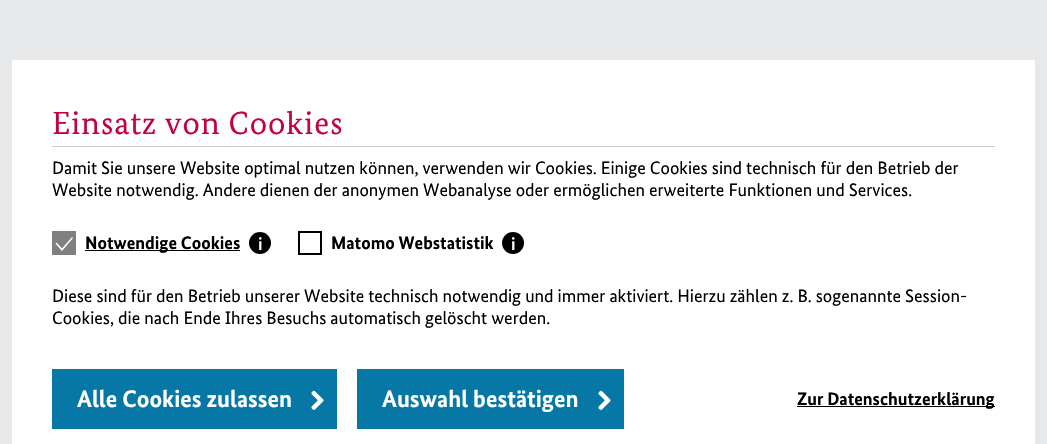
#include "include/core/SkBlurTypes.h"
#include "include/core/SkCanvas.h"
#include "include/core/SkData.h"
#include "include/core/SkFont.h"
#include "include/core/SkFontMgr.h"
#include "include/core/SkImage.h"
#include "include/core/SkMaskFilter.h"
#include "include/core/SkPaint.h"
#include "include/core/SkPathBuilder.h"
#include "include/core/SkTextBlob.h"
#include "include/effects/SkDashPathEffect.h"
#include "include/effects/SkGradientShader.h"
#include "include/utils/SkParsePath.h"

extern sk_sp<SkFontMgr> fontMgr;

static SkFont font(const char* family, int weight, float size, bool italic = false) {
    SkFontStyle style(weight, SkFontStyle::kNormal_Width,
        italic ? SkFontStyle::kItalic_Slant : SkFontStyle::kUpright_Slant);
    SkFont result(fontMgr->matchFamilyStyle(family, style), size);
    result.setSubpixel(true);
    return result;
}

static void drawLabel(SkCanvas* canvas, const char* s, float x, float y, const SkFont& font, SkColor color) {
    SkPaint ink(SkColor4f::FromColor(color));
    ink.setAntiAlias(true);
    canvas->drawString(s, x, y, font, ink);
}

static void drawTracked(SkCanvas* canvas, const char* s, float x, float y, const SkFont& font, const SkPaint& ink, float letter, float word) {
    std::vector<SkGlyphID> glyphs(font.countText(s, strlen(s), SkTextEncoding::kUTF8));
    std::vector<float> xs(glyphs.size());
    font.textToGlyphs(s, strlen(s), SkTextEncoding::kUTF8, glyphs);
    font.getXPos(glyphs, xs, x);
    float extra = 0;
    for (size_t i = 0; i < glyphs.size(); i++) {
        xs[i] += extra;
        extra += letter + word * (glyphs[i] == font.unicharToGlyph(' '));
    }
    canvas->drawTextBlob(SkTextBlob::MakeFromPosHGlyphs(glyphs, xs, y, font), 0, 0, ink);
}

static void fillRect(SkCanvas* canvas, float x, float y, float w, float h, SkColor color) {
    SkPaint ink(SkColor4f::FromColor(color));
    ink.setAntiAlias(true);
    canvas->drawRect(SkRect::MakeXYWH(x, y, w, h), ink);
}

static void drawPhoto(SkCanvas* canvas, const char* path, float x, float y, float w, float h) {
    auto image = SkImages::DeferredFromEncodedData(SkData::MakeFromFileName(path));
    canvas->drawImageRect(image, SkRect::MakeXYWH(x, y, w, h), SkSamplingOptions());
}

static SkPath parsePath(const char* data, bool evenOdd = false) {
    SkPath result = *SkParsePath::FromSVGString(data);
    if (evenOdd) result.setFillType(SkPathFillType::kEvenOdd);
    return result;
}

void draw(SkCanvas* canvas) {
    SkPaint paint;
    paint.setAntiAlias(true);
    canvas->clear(0xFFE6E8E9);
    fillRect(canvas, 12, 60, 1023, 384, 0xFFFFFFFF);
    fillRect(canvas, 52, 146, 943, 1, 0xFFCBCCCD);
    SkFont font1 = font("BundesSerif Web", 400, 32);
    paint.setColor(0xFFC40046);
    drawTracked(canvas, "Einsatz von Cookies", 52, 134, font1, paint, 1, 0);
    SkFont font2 = font("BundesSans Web", 400, 18);
    drawLabel(canvas, "Damit Sie unsere Website optimal nutzen können, verwenden wir Cookies. Einige Cookies sind technisch für den Betrieb der", 52, 174, font2, 0xFF000000);
    drawLabel(canvas, "Website notwendig. Andere dienen der anonymen Webanalyse oder ermöglichen erweiterte Funktionen und Services.", 52, 196, font2, 0xFF000000);
    fillRect(canvas, 52, 231, 24, 24, 0xFF808080);
    paint.setColor(0xFFFFFFFF);
    canvas->drawPath(parsePath("M56.5 242.5L55.5 243.5L62 251L73 238L72 237L62 248.5Z"), paint);
    fillRect(canvas, 85, 250, 155, 1, 0xFF000000);
    SkFont font3 = font("BundesSans Web", 700, 18);
    drawLabel(canvas, "Notwendige Cookies", 85, 249, font3, 0xFF000000);
    paint.setColor(0xFF000000);
    canvas->drawCircle(260, 243, 11, paint);
    drawPhoto(canvas, "assets/img1.png", 259, 237, 3, 13);
    paint.setStroke(true);
    paint.setStrokeWidth(2);
    canvas->drawRect(SkRect::MakeXYWH(299, 232, 22, 22), paint);
    drawLabel(canvas, "Matomo Webstatistik", 331, 249, font3, 0xFF000000);
    paint.setStroke(false);
    canvas->drawCircle(513, 243, 11, paint);
    drawPhoto(canvas, "assets/img1.png", 512, 237, 3, 13);
    drawLabel(canvas, "Diese sind für den Betrieb unserer Website technisch notwendig und immer aktiviert. Hierzu zählen z. B. sogenannte Session-", 52, 302, font2, 0xFF000000);
    drawLabel(canvas, "Cookies, die nach Ende Ihres Besuchs automatisch gelöscht werden.", 52, 324, font2, 0xFF000000);
    fillRect(canvas, 52, 369, 285, 60, 0xFF0778A5);
    SkFont font4 = font("BundesSans Web", 700, 24);
    drawLabel(canvas, "Alle Cookies zulassen", 77, 407, font4, 0xFFFFFFFF);
    drawPhoto(canvas, "assets/img2.png", 311, 390, 13, 20);
    fillRect(canvas, 357, 369, 267, 60, 0xFF0778A5);
    drawLabel(canvas, "Auswahl bestätigen", 382, 407, font4, 0xFFFFFFFF);
    drawPhoto(canvas, "assets/img2.png", 598, 390, 13, 20);
    fillRect(canvas, 797, 406, 198, 1, 0xFF000000);
    drawLabel(canvas, "Zur Datenschutzerklärung", 797, 405, font3, 0xFF000000);
}
